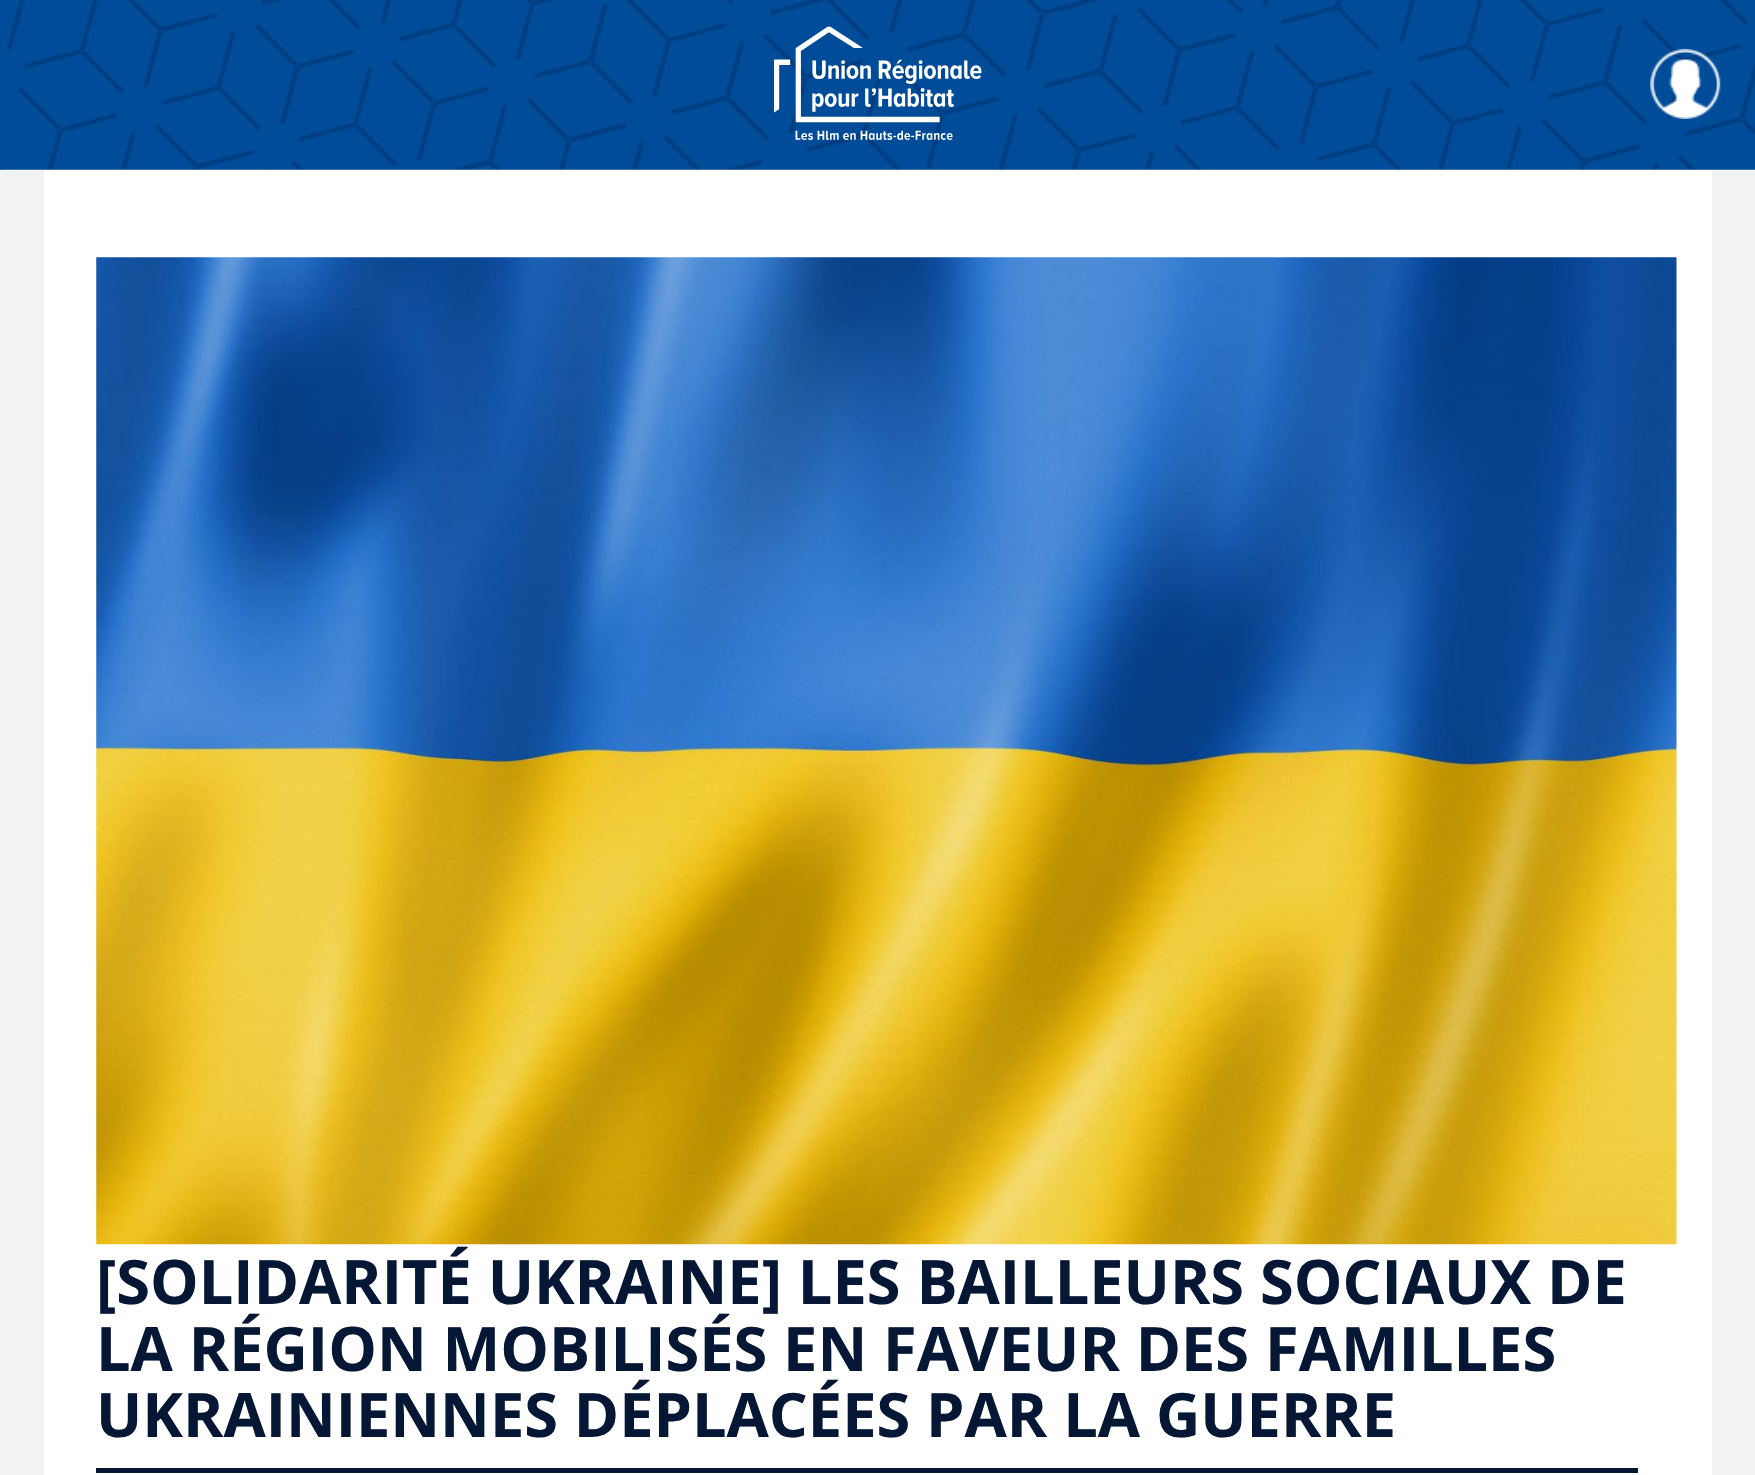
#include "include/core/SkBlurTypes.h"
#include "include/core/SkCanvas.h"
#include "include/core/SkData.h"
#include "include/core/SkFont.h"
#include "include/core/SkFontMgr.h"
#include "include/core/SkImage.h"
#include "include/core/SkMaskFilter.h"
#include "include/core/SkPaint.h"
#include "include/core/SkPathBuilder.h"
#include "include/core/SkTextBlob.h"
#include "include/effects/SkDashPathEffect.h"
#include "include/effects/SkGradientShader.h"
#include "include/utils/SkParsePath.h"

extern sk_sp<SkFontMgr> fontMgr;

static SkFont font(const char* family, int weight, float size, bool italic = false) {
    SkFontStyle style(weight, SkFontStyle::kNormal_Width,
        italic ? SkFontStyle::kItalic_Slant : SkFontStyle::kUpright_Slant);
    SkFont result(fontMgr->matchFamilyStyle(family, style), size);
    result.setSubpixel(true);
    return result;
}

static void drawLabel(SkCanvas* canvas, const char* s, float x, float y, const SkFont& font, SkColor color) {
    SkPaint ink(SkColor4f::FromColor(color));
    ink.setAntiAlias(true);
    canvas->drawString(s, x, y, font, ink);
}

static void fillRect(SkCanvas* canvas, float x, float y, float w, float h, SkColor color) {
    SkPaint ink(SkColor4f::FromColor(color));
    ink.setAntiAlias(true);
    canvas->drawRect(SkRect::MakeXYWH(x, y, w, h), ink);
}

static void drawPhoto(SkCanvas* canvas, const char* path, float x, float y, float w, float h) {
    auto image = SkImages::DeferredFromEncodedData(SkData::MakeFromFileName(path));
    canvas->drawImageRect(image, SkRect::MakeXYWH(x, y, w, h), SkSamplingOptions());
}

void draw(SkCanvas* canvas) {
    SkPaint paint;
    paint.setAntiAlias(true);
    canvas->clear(0xFFF2F3F5);
    drawPhoto(canvas, "assets/img1.png", 0, 0, 1755, 170);
    drawPhoto(canvas, "assets/img2.png", 774, 26, 208, 114);
    drawPhoto(canvas, "assets/img3.png", 1650, 49, 71, 70);
    fillRect(canvas, 44, 170, 1668, 1305, 0xFFFFFFFF);
    drawPhoto(canvas, "assets/img4.png", 96, 257, 1581, 988);
    SkFont font1 = font("Open Sans", 700, 61.25f);
    drawLabel(canvas, "[SOLIDARITÉ UKRAINE] LES BAILLEURS SOCIAUX DE", 96, 1304, font1, 0xFF061735);
    drawLabel(canvas, "LA RÉGION MOBILISÉS EN FAVEUR DES FAMILLES", 96, 1371, font1, 0xFF061735);
    drawLabel(canvas, "UKRAINIENNES DÉPLACÉES PAR LA GUERRE", 96, 1437, font1, 0xFF061735);
    fillRect(canvas, 96, 1468, 1542, 5, 0xFF061735);
}
